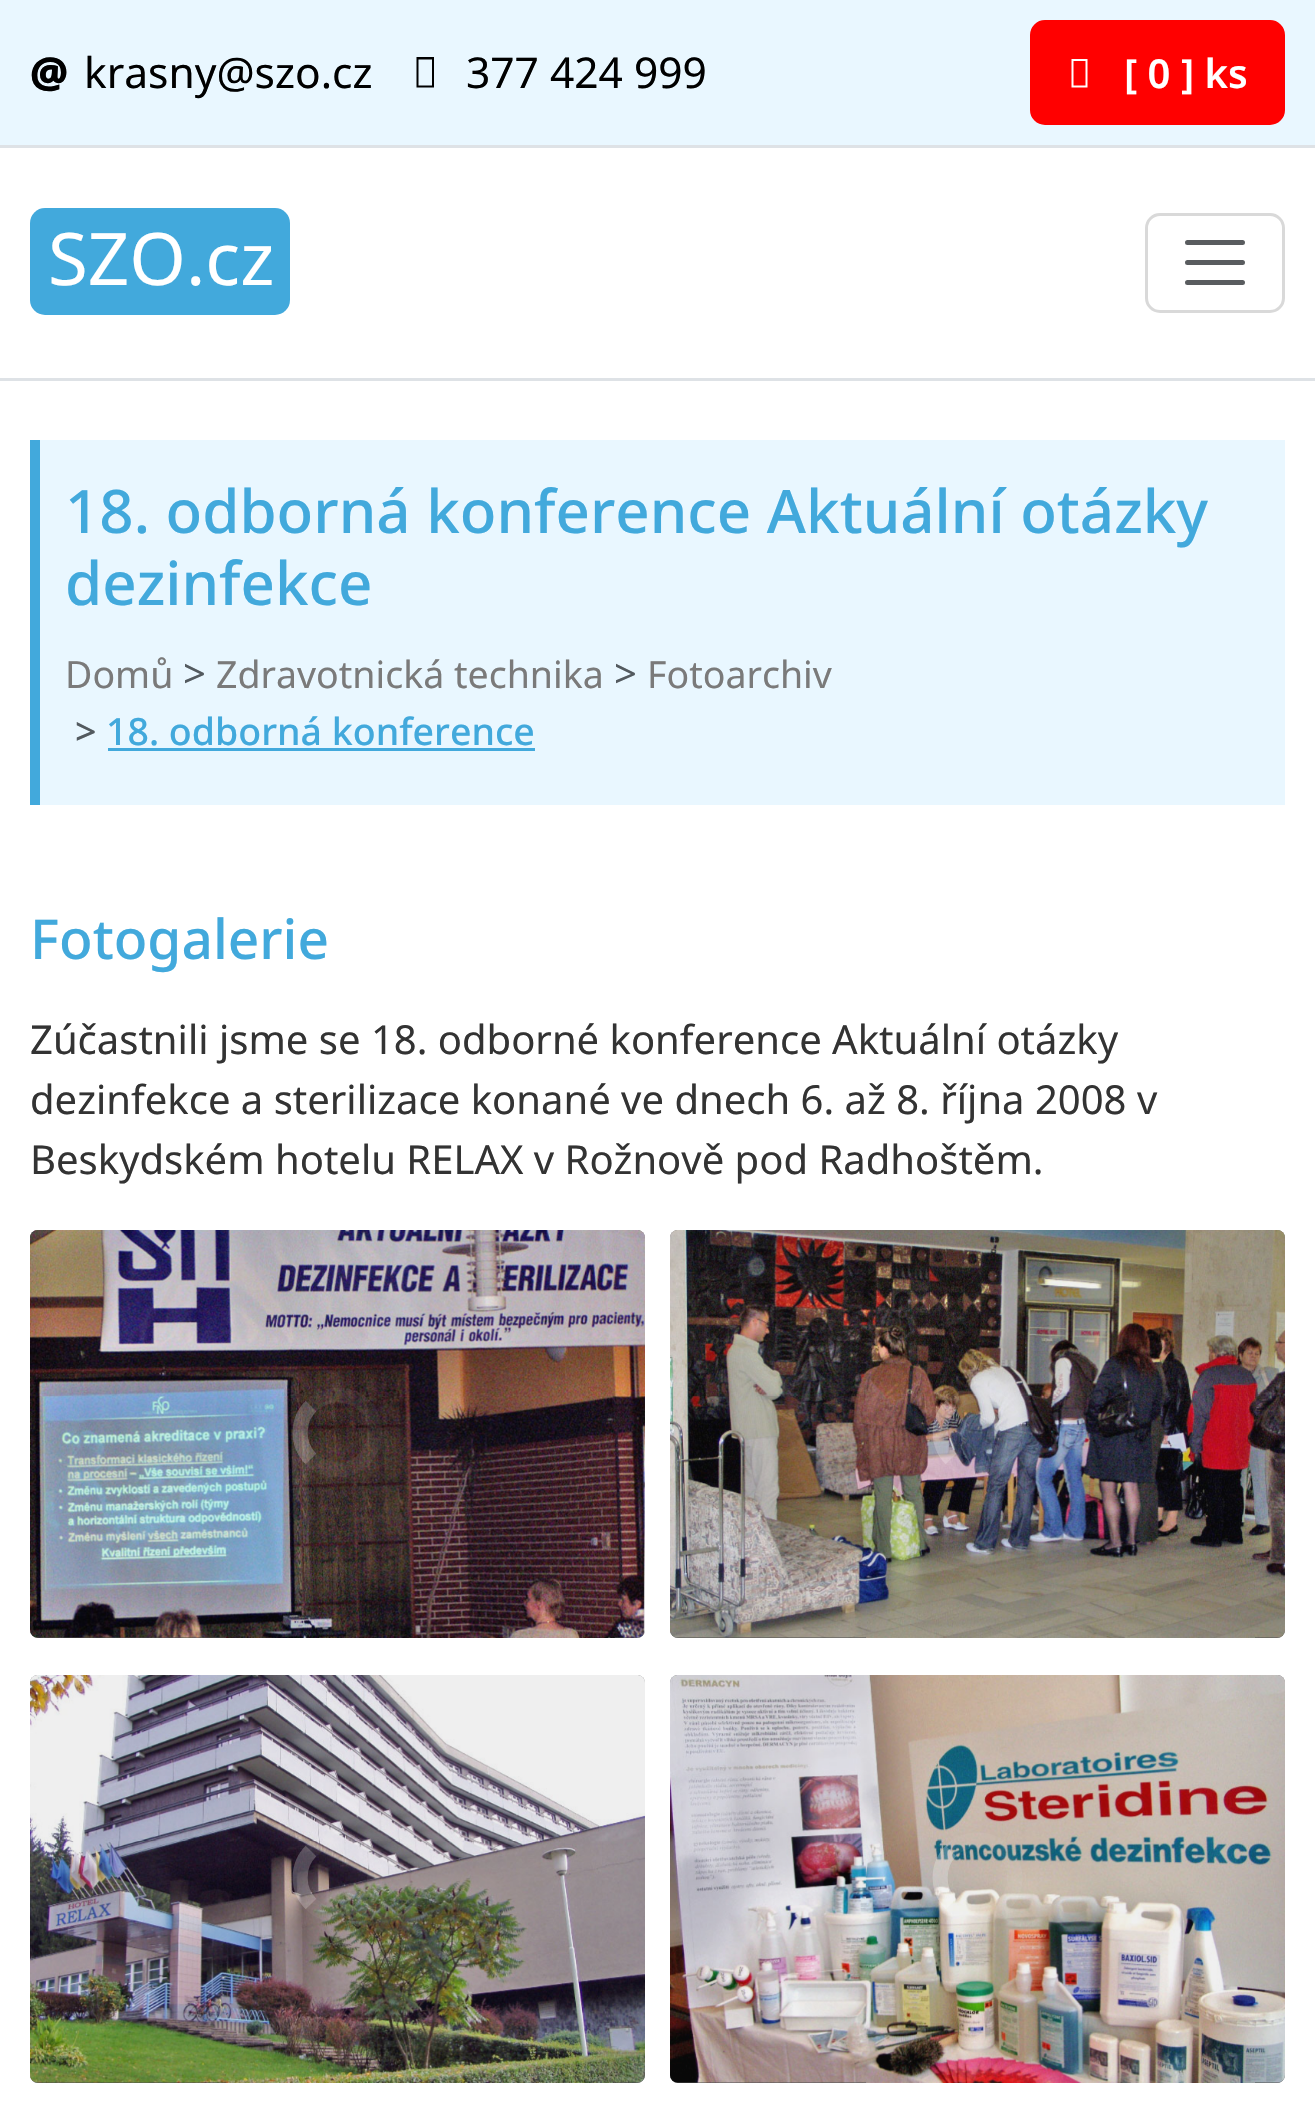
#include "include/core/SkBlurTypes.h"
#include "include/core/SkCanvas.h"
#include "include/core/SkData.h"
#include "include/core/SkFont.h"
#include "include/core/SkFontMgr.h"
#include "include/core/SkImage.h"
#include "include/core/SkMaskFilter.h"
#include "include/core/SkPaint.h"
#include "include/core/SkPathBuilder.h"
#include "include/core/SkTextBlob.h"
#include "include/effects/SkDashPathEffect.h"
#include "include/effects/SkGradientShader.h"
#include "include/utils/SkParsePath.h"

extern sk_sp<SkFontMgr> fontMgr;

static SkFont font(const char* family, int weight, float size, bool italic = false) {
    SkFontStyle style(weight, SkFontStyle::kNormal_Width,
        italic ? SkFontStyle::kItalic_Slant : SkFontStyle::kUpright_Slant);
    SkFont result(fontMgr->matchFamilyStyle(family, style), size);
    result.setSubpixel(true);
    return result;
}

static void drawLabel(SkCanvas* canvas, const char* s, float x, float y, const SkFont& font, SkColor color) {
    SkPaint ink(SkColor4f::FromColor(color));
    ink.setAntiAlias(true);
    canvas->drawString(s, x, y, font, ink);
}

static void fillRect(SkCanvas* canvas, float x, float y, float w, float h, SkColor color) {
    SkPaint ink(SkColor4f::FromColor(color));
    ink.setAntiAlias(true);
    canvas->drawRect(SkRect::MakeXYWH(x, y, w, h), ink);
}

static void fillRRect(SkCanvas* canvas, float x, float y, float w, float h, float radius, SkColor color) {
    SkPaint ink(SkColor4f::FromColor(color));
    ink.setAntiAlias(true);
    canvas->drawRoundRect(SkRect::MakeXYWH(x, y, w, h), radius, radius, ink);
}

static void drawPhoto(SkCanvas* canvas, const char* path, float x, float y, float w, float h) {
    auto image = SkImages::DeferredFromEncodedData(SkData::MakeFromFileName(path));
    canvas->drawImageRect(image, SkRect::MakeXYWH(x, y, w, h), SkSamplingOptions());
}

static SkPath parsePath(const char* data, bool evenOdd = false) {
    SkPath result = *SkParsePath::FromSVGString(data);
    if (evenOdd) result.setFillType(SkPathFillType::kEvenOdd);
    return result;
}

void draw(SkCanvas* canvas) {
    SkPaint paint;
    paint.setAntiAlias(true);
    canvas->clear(0xFFFFFFFF);
    fillRect(canvas, 0, 0, 1315, 145, 0xFFE9F7FF);
    fillRect(canvas, 0, 145, 1315, 3, 0xFFDEE2E6);
    SkFont font1 = font("Noto Sans", 900, 42.5f);
    drawLabel(canvas, "@", 30, 88, font1, 0xFF000000);
    SkFont font2 = font("Noto Sans", 400, 42.5f);
    drawLabel(canvas, "krasny@szo.cz", 84, 88, font2, 0xFF000000);
    paint.setColor(0xFF000000);
    canvas->drawPath(parsePath("M416.5 87.5V57H434V87.5ZM418.5 85.5H432V59.5H418.5Z"), paint);
    drawLabel(canvas, "377 424 999", 466, 88, font2, 0xFF000000);
    paint.setColor(0xFFFF0000);
    canvas->drawRoundRect(SkRect::MakeXYWH(1034, 24, 247, 97), 11, 11, paint);
    paint.setStroke(true);
    paint.setStrokeWidth(8);
    canvas->drawRoundRect(SkRect::MakeXYWH(1034, 24, 247, 97), 11, 11, paint);
    paint.setStroke(false);
    paint.setColor(0xFFFFFFFF);
    canvas->drawPath(parsePath("M1071.5 87.5V59H1087.5V87.5ZM1073.5 85.5H1085.5V61H1073.5Z"), paint);
    SkFont font3 = font("Noto Sans", 600, 40);
    drawLabel(canvas, "[ 0 ] ks", 1124, 88, font3, 0xFFFFFFFF);
    fillRect(canvas, 0, 378, 1315, 3, 0xFFDEE2E6);
    fillRRect(canvas, 30, 208, 260, 107, 15, 0xFF42A9DC);
    SkFont font4 = font("Noto Sans", 400, 72.5f);
    drawLabel(canvas, "SZO.cz", 48, 285, font4, 0xFFFFFFFF);
    paint.setStroke(true);
    paint.setStrokeWidth(3);
    paint.setColor(0xFFD9D9D9);
    canvas->drawRoundRect(SkRect::MakeXYWH(1146.5f, 214.5f, 137, 97), 13.5f, 13.5f, paint);
    paint.setStrokeWidth(5);
    paint.setStrokeCap(SkPaint::kRound_Cap);
    paint.setColor(0xFF595C5F);
    canvas->drawPath(parsePath("M1187.5 242.5H1242.5M1187.5 262.5H1242.5M1187.5 282.5H1242.5"), paint);
    fillRect(canvas, 40, 440, 1245, 365, 0xFFE9F7FF);
    fillRect(canvas, 30, 440, 10, 365, 0xFF42A9DC);
    SkFont font5 = font("Noto Sans", 500, 60);
    drawLabel(canvas, "18. odborná konference Aktuální otázky", 65, 533, font5, 0xFF42A9DC);
    drawLabel(canvas, "dezinfekce", 65, 605, font5, 0xFF42A9DC);
    SkFont font6 = font("Noto Sans", 400, 37.5f);
    drawLabel(canvas, "Domů", 65, 688, font6, 0xFF7A7A7A);
    SkFont font7 = font("Noto Sans", 400, 40);
    drawLabel(canvas, ">", 183, 688, font7, 0xFF535A5F);
    drawLabel(canvas, "Zdravotnická technika", 216, 688, font6, 0xFF7A7A7A);
    drawLabel(canvas, ">", 614, 688, font7, 0xFF535A5F);
    drawLabel(canvas, "Fotoarchiv", 647, 688, font6, 0xFF7A7A7A);
    SkFont font8 = font("Noto Sans", 500, 37.5f);
    drawLabel(canvas, ">", 75, 745, font8, 0xFF535A5F);
    drawLabel(canvas, "18. odborná konference", 106, 745, font8, 0xFF42A9DC);
    fillRect(canvas, 108, 748, 427, 3, 0xFF42A9DC);
    SkFont font9 = font("Noto Sans", 500, 55);
    drawLabel(canvas, "Fotogalerie", 30, 959, font9, 0xFF42A9DC);
    drawLabel(canvas, "Zúčastnili jsme se 18. odborné konference Aktuální otázky", 30, 1054, font7, 0xFF333333);
    drawLabel(canvas, "dezinfekce a sterilizace konané ve dnech 6. až 8. října 2008 v", 30, 1114, font7, 0xFF333333);
    drawLabel(canvas, "Beskydském hotelu RELAX v Rožnově pod Radhoštěm.", 30, 1174, font7, 0xFF333333);
    fillRRect(canvas, 30, 1230, 615, 408, 8, 0xFF4E4E4E);
    drawPhoto(canvas, "assets/img1.png", 30, 1230, 615, 408);
    paint.setStrokeWidth(15);
    paint.setStrokeCap(SkPaint::kButt_Cap);
    paint.setColor(0x0DFFFFFF);
    canvas->drawPath(parsePath("M311 1406C320 1397 332.5 1393.5 345 1395.5C389 1404.5 382.5 1470 337.5 1470C327.5 1470 318 1466 311 1459"), paint);
    paint.setColor(0x3BFFFFFF);
    canvas->drawPath(parsePath("M311 1459C296.5 1444.5 296.5 1420.5 311 1406"), paint);
    fillRRect(canvas, 670, 1230, 615, 408, 8, 0xFF4E4E4E);
    drawPhoto(canvas, "assets/img2.png", 670, 1230, 615, 408);
    paint.setColor(0x0DFFFFFF);
    canvas->drawPath(parsePath("M951 1406C960 1397 972.5 1393.5 985 1395.5C1029 1404.5 1022.5 1470 977.5 1470C967.5 1470 958 1466 951 1459"), paint);
    paint.setColor(0x3BFFFFFF);
    canvas->drawPath(parsePath("M951 1459C936.5 1444.5 936.5 1420.5 951 1406"), paint);
    fillRRect(canvas, 30, 1675, 615, 408, 8, 0xFF4E4E4E);
    drawPhoto(canvas, "assets/img3.png", 30, 1675, 615, 408);
    paint.setColor(0x0DFFFFFF);
    canvas->drawPath(parsePath("M311 1851C318 1844 327.5 1840 337.5 1840C382.5 1840 389 1905.5 345 1914.5C332.5 1916.5 320 1913 311 1904"), paint);
    paint.setColor(0x3DFFFFFF);
    canvas->drawPath(parsePath("M311 1904C296.5 1889.5 296.5 1865.5 311 1851"), paint);
    fillRRect(canvas, 670, 1675, 615, 408, 8, 0xFF4E4E4E);
    drawPhoto(canvas, "assets/img4.png", 670, 1675, 615, 408);
    paint.setColor(0x0DFFFFFF);
    canvas->drawPath(parsePath("M951 1851C958 1844 967.5 1840 977.5 1840C1022.5 1840 1029 1905.5 985 1914.5C972.5 1916.5 960 1913 951 1904"), paint);
    paint.setColor(0x40FFFFFF);
    canvas->drawPath(parsePath("M951 1904C936.5 1889.5 936.5 1865.5 951 1851"), paint);
}
